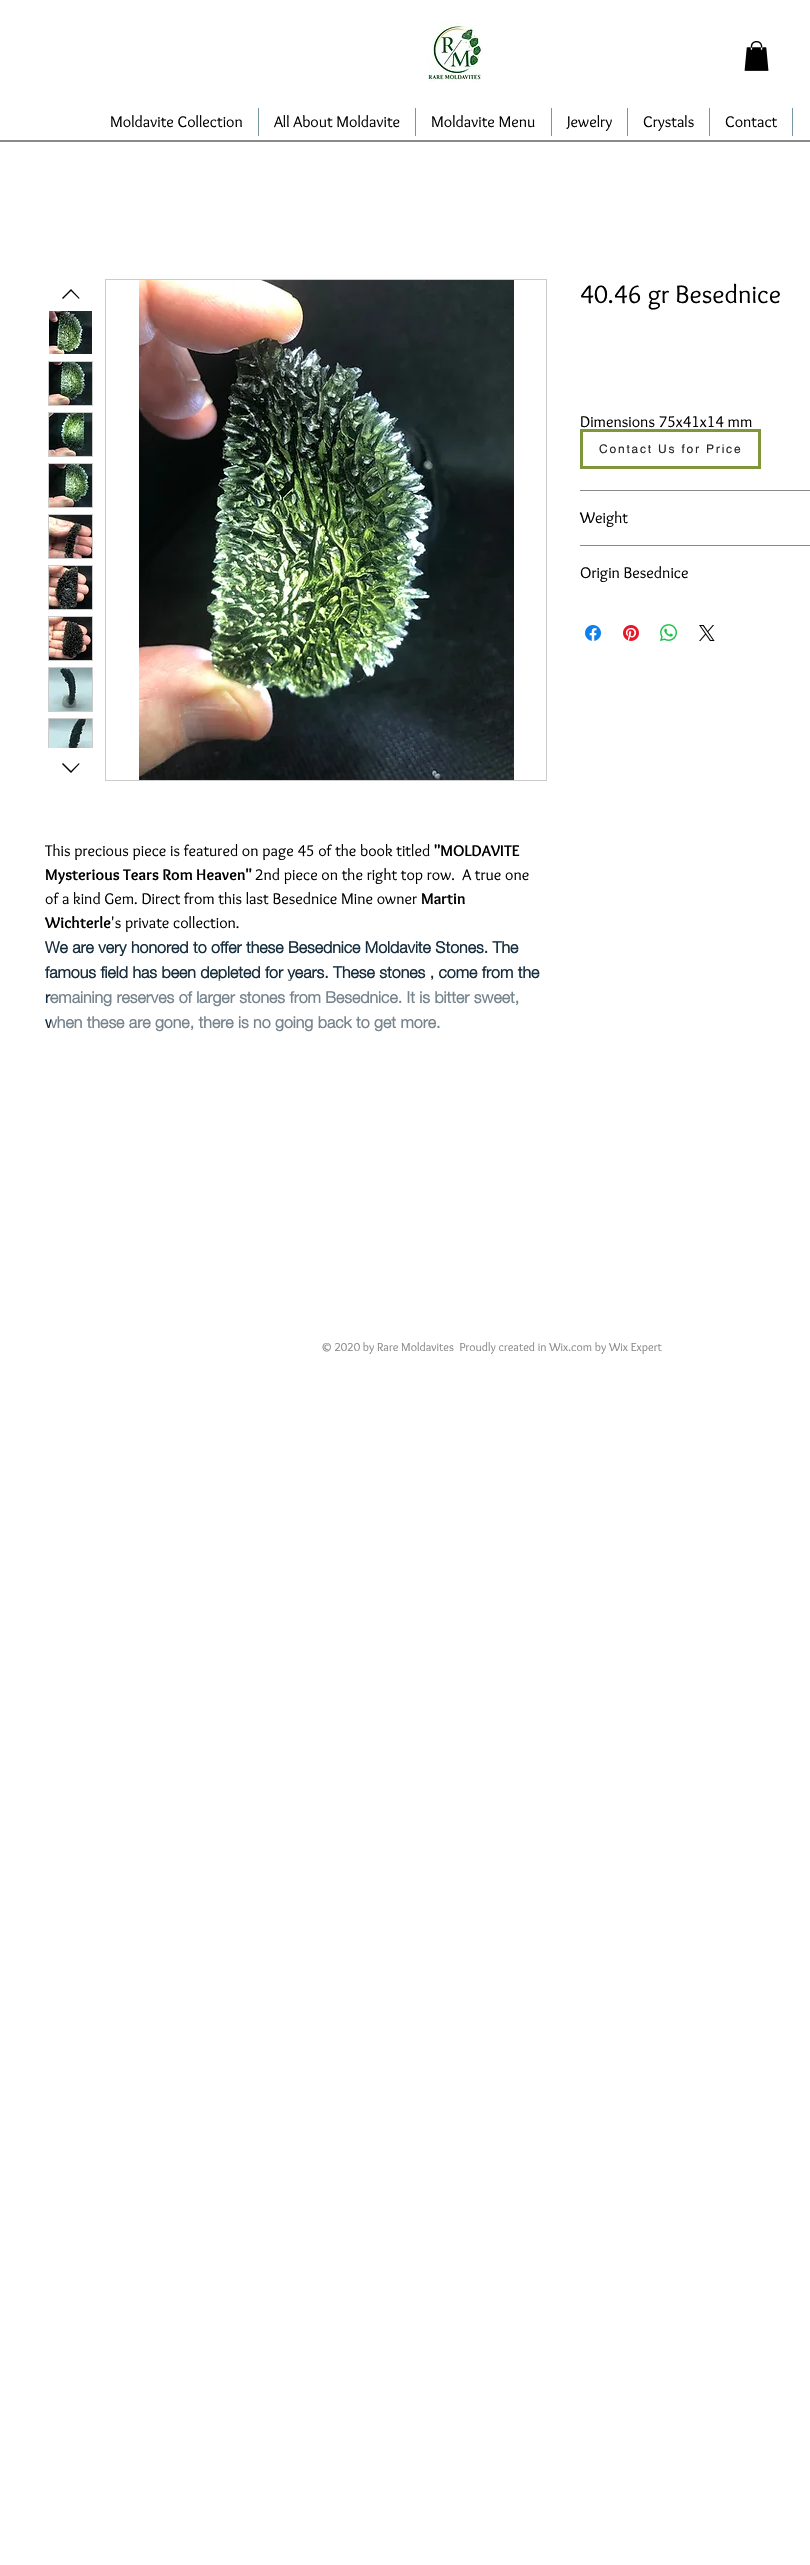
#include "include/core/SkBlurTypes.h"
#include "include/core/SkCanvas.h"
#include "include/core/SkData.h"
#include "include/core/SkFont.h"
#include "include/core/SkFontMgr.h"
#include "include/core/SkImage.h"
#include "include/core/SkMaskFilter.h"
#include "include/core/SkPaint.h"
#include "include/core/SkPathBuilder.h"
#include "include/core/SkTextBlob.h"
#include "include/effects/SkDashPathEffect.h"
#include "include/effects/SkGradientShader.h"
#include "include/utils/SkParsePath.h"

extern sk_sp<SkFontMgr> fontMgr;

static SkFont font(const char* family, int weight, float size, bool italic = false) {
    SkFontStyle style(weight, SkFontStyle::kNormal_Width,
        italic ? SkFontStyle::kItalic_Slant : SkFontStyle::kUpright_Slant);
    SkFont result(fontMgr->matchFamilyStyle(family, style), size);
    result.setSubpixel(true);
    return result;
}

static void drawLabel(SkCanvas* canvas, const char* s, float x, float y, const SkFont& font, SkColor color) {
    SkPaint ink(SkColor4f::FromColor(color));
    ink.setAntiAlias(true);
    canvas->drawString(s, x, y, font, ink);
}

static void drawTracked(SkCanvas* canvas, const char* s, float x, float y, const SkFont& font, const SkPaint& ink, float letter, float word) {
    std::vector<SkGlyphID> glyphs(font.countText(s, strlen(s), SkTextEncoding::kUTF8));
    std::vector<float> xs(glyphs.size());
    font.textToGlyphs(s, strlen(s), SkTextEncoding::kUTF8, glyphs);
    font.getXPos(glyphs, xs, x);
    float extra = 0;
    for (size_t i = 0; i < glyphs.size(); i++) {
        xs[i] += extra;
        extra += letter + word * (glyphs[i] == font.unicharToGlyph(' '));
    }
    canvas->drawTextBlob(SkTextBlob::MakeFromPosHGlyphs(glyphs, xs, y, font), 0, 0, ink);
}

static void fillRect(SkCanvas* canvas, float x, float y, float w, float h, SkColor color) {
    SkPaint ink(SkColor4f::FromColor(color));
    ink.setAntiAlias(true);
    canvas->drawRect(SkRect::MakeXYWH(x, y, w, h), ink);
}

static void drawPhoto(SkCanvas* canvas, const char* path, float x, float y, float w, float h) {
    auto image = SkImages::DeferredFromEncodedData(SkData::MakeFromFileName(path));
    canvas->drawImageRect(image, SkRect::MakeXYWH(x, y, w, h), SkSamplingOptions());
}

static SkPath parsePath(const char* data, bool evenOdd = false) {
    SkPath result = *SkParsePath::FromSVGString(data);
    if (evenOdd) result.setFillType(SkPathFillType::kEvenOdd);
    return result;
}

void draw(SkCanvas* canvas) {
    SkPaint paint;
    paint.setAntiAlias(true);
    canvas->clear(0xFFFFFFFF);
    drawPhoto(canvas, "assets/img1.png", 427, 23, 57, 60);
    drawPhoto(canvas, "assets/img2.png", 744, 41, 25, 30);
    SkFont font1 = font("Overlock", 400, 16);
    drawLabel(canvas, "Moldavite Collection", 110, 127, font1, 0xFF000000);
    fillRect(canvas, 258, 108, 1, 28, 0xFF7795A3);
    drawLabel(canvas, "All About Moldavite", 274, 127, font1, 0xFF000000);
    fillRect(canvas, 415, 108, 1, 28, 0xFF7795A3);
    drawLabel(canvas, "Moldavite Menu", 431, 127, font1, 0xFF000000);
    fillRect(canvas, 551, 108, 1, 28, 0xFF7795A3);
    drawLabel(canvas, "Jewelry", 567, 127, font1, 0xFF000000);
    fillRect(canvas, 627, 108, 1, 28, 0xFF7795A3);
    drawLabel(canvas, "Crystals", 643, 127, font1, 0xFF000000);
    fillRect(canvas, 709, 108, 1, 28, 0xFF7795A3);
    drawLabel(canvas, "Contact", 725, 127, font1, 0xFF000000);
    fillRect(canvas, 792, 108, 1, 28, 0xFF7795A3);
    fillRect(canvas, 0, 140, 810, 2, 0xFF8B8A8A);
    SkFont font2 = font("Overlock", 400, 26);
    drawLabel(canvas, "40.46 gr Besednice", 580, 303, font2, 0xFF000000);
    fillRect(canvas, 580, 490, 230, 1, 0xFF8B8A8A);
    drawLabel(canvas, "Dimensions 75x41x14 mm", 580, 427, font1, 0xFF000000);
    fillRect(canvas, 580, 545, 230, 1, 0xFF8B8A8A);
    drawLabel(canvas, "Weight", 580, 523, font1, 0xFF000000);
    drawLabel(canvas, "Origin Besednice", 580, 578, font1, 0xFF000000);
    drawPhoto(canvas, "assets/img3.png", 585, 625, 16, 16);
    drawPhoto(canvas, "assets/img4.png", 623, 625, 16, 16);
    drawPhoto(canvas, "assets/img5.png", 660, 624, 17, 17);
    drawPhoto(canvas, "assets/img6.png", 699, 625, 16, 16);
    paint.setColor(0xFF000000);
    canvas->drawPath(parsePath("M71 289L79.5 298L79 299L71 291L63 299L62 298Z", true), paint);
    drawPhoto(canvas, "assets/img7.png", 49, 311, 43, 43);
    fillRect(canvas, 48, 361, 45, 45, 0xFFCCCCCC);
    drawPhoto(canvas, "assets/img8.png", 49, 362, 43, 43);
    fillRect(canvas, 48, 412, 45, 45, 0xFFCCCCCC);
    drawPhoto(canvas, "assets/img9.png", 49, 413, 43, 43);
    fillRect(canvas, 48, 463, 45, 45, 0xFFCCCCCC);
    drawPhoto(canvas, "assets/img10.png", 49, 464, 43, 43);
    fillRect(canvas, 48, 514, 45, 45, 0xFFCCCCCC);
    drawPhoto(canvas, "assets/img11.png", 49, 515, 43, 43);
    fillRect(canvas, 48, 565, 45, 45, 0xFFCCCCCC);
    drawPhoto(canvas, "assets/img12.png", 49, 566, 43, 43);
    fillRect(canvas, 48, 616, 45, 45, 0xFFCCCCCC);
    drawPhoto(canvas, "assets/img13.png", 49, 617, 43, 43);
    fillRect(canvas, 48, 667, 45, 45, 0xFFCCCCCC);
    drawPhoto(canvas, "assets/img14.png", 49, 668, 43, 43);
    fillRect(canvas, 48, 718, 45, 30, 0xFFCCCCCC);
    drawPhoto(canvas, "assets/img15.png", 49, 719, 43, 29);
    canvas->drawPath(parsePath("M79 763L79.5 764L71 773L62 764L63 763L71 771Z", true), paint);
    paint.setStroke(true);
    paint.setStrokeWidth(1);
    paint.setColor(0xFFCCCCCC);
    canvas->drawRect(SkRect::MakeXYWH(105.5f, 279.5f, 441, 501), paint);
    drawPhoto(canvas, "assets/img16.png", 139, 280, 375, 500);
    drawLabel(canvas, "This precious piece is featured on page 45 of the book titled", 45, 856, font1, 0xFF000000);
    SkFont font3 = font("Overlock", 700, 16);
    drawLabel(canvas, "\"MOLDAVITE", 434, 856, font3, 0xFF000000);
    drawLabel(canvas, "Mysterious Tears Rom Heaven\"", 45, 880, font3, 0xFF000000);
    drawLabel(canvas, "2nd piece on the right top row.  A true one", 255, 880, font1, 0xFF000000);
    drawLabel(canvas, "of a kind Gem. Direct from this last Besednice Mine owner", 45, 904, font1, 0xFF000000);
    drawLabel(canvas, "Martin", 421, 904, font3, 0xFF000000);
    drawLabel(canvas, "Wichterle", 45, 928, font3, 0xFF000000);
    drawLabel(canvas, "'s private collection.", 111, 928, font1, 0xFF000000);
    SkFont font4 = font("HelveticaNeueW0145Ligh", 700, 16);
    drawLabel(canvas, "We are very honored to offer these Besednice Moldavite Stones. The", 45, 953, font4, 0xFF162D3D);
    drawLabel(canvas, "famous field has been depleted for years. These stones , come from the", 45, 978, font4, 0xFF162D3D);
    drawLabel(canvas, "remaining reserves of larger stones from Besednice. It is bitter sweet,", 45, 1003, font4, 0xFF162D3D);
    drawLabel(canvas, "when these are gone, there is no going back to get more.", 45, 1028, font4, 0xFF162D3D);
    paint.setStrokeWidth(3);
    paint.setColor(0xFF80963B);
    canvas->drawRect(SkRect::MakeXYWH(581.5f, 430.5f, 178, 37), paint);
    SkFont font5 = font("helvetica", 400, 12);
    paint.setStroke(false);
    paint.setColor(0xFF292929);
    drawTracked(canvas, "Contact Us for Price", 599, 453, font5, paint, 1.8f, 0);
    fillRect(canvas, 51, 979, 467, 53, 0x69FFFFFF);
    SkFont font6 = font("Overlock", 400, 12);
    drawLabel(canvas, "© 2020 by Rare Moldavites  Proudly created in Wix.com by Wix Expert", 321, 1351, font6, 0xFF8B8A8A);
}
